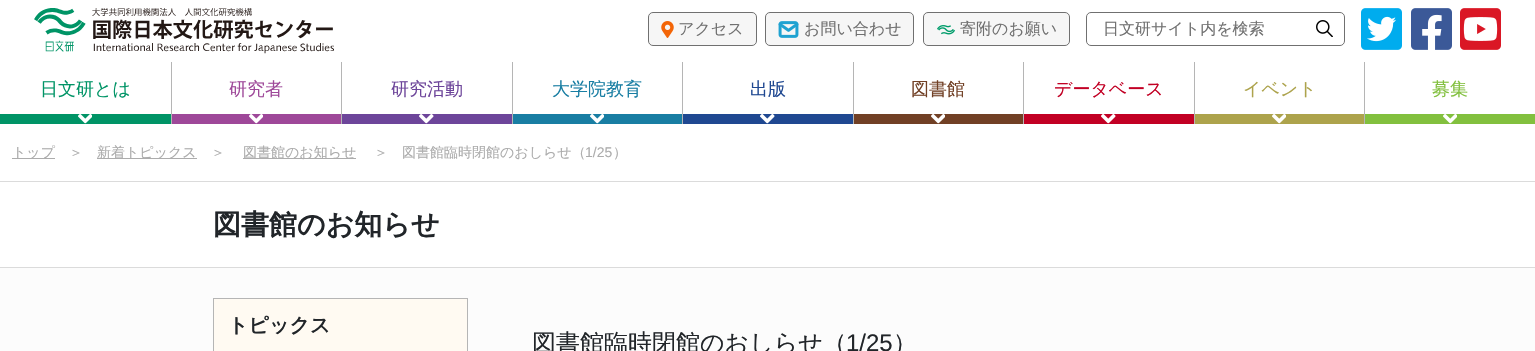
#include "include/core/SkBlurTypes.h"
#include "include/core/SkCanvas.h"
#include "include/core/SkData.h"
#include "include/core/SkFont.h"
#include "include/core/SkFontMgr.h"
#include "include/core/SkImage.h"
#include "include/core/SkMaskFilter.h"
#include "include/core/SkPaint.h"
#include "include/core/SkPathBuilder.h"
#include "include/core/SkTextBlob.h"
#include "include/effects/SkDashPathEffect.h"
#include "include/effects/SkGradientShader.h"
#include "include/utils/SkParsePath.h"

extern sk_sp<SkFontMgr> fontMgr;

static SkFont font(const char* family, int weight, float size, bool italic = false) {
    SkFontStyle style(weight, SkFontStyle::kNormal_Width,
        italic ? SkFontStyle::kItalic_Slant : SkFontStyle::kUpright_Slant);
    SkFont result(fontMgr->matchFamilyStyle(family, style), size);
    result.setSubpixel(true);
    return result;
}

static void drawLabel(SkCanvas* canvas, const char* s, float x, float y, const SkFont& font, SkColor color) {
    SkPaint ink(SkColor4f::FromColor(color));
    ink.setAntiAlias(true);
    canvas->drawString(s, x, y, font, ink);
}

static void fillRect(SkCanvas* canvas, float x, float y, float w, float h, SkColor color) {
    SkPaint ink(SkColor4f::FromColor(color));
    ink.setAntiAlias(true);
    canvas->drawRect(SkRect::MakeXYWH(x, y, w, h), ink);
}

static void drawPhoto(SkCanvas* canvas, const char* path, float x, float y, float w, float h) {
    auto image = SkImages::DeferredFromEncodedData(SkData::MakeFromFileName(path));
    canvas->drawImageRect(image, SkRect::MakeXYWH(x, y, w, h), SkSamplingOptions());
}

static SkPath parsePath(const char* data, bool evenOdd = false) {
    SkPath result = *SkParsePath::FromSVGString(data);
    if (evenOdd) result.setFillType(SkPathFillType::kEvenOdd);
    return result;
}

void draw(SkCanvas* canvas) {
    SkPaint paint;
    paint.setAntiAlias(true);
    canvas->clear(0xFFFFFFFF);
    drawPhoto(canvas, "assets/img1.png", 34, 8, 300, 46);
    paint.setColor(0xFFF6F6F6);
    canvas->drawRoundRect(SkRect::MakeXYWH(648.5f, 12.5f, 108, 33), 4.5f, 4.5f, paint);
    paint.setStroke(true);
    paint.setStrokeWidth(1);
    paint.setColor(0xFF707070);
    canvas->drawRoundRect(SkRect::MakeXYWH(648.5f, 12.5f, 108, 33), 4.5f, 4.5f, paint);
    drawPhoto(canvas, "assets/img2.png", 661, 21, 13, 17);
    SkFont font1 = font("WenQuanYi Zen Hei", 500, 16);
    drawLabel(canvas, "アクセス", 678, 34, font1, 0xFF707070);
    paint.setStroke(false);
    paint.setColor(0xFFF6F6F6);
    canvas->drawRoundRect(SkRect::MakeXYWH(765.5f, 12.5f, 148, 33), 4.5f, 4.5f, paint);
    paint.setStroke(true);
    paint.setColor(0xFF707070);
    canvas->drawRoundRect(SkRect::MakeXYWH(765.5f, 12.5f, 148, 33), 4.5f, 4.5f, paint);
    drawPhoto(canvas, "assets/img3.png", 778, 21, 21, 17);
    drawLabel(canvas, "お問い合わせ", 804, 34, font1, 0xFF707070);
    paint.setStroke(false);
    paint.setColor(0xFFF6F6F6);
    canvas->drawRoundRect(SkRect::MakeXYWH(923.5f, 12.5f, 146, 33), 4.5f, 4.5f, paint);
    paint.setStroke(true);
    paint.setColor(0xFF707070);
    canvas->drawRoundRect(SkRect::MakeXYWH(923.5f, 12.5f, 146, 33), 4.5f, 4.5f, paint);
    drawPhoto(canvas, "assets/img4.png", 937, 25, 18, 10);
    drawLabel(canvas, "寄附のお願い", 960, 34, font1, 0xFF707070);
    canvas->drawRoundRect(SkRect::MakeXYWH(1086.5f, 12.5f, 258, 33), 4.5f, 4.5f, paint);
    drawLabel(canvas, "日文研サイト内を検索", 1103, 34, font1, 0xFF707070);
    drawPhoto(canvas, "assets/img5.png", 1316, 20, 17, 17);
    drawPhoto(canvas, "assets/img6.png", 1361, 8, 41, 42);
    drawPhoto(canvas, "assets/img7.png", 1411, 8, 41, 42);
    drawPhoto(canvas, "assets/img8.png", 1460, 8, 41, 42);
    fillRect(canvas, 0, 114, 171, 10, 0xFF009466);
    SkFont font2 = font("WenQuanYi Zen Hei", 500, 18);
    drawLabel(canvas, "日文研とは", 40, 95, font2, 0xFF009466);
    drawPhoto(canvas, "assets/img9.png", 78, 114, 14, 10);
    fillRect(canvas, 171, 62, 1, 62, 0xFFB5B5B5);
    fillRect(canvas, 172, 114, 169, 10, 0xFF9E4899);
    drawLabel(canvas, "研究者", 229, 95, font2, 0xFF9E4899);
    drawPhoto(canvas, "assets/img10.png", 249, 114, 14, 10);
    fillRect(canvas, 341, 62, 1, 62, 0xFFB5B5B5);
    fillRect(canvas, 342, 114, 170, 10, 0xFF6D459A);
    drawLabel(canvas, "研究活動", 391, 95, font2, 0xFF6D459A);
    drawPhoto(canvas, "assets/img11.png", 419, 114, 15, 10);
    fillRect(canvas, 512, 62, 1, 62, 0xFFB5B5B5);
    fillRect(canvas, 513, 114, 169, 10, 0xFF197EA3);
    drawLabel(canvas, "大学院教育", 552, 95, font2, 0xFF197EA3);
    drawPhoto(canvas, "assets/img12.png", 590, 114, 14, 10);
    fillRect(canvas, 682, 62, 1, 62, 0xFFB5B5B5);
    fillRect(canvas, 683, 114, 170, 10, 0xFF1F4891);
    drawLabel(canvas, "出版", 750, 95, font2, 0xFF1F4891);
    drawPhoto(canvas, "assets/img13.png", 760, 114, 15, 10);
    fillRect(canvas, 853, 62, 1, 62, 0xFFB5B5B5);
    fillRect(canvas, 854, 114, 169, 10, 0xFF714025);
    drawLabel(canvas, "図書館", 911, 95, font2, 0xFF714025);
    drawPhoto(canvas, "assets/img14.png", 931, 114, 14, 10);
    fillRect(canvas, 1023, 62, 1, 62, 0xFFB5B5B5);
    fillRect(canvas, 1024, 114, 170, 10, 0xFFC20024);
    drawLabel(canvas, "データベース", 1054, 95, font2, 0xFFC20024);
    drawPhoto(canvas, "assets/img15.png", 1101, 114, 15, 10);
    fillRect(canvas, 1194, 62, 1, 62, 0xFFB5B5B5);
    fillRect(canvas, 1195, 114, 169, 10, 0xFFADA34C);
    drawLabel(canvas, "イベント", 1243, 95, font2, 0xFFADA34C);
    drawPhoto(canvas, "assets/img16.png", 1272, 114, 14, 10);
    fillRect(canvas, 1364, 62, 1, 62, 0xFFB5B5B5);
    fillRect(canvas, 1365, 114, 170, 10, 0xFF82C03E);
    drawLabel(canvas, "募集", 1432, 95, font2, 0xFF82C03E);
    drawPhoto(canvas, "assets/img17.png", 1443, 114, 14, 10);
    fillRect(canvas, 0, 181, 1535, 1, 0xFFDBDBDB);
    fillRect(canvas, 12, 158, 43, 1, 0xFFACACAC);
    SkFont font3 = font("WenQuanYi Zen Hei", 500, 14);
    drawLabel(canvas, "トップ", 12, 157, font3, 0xFFACACAC);
    drawLabel(canvas, "＞", 69, 157, font3, 0xFFACACAC);
    fillRect(canvas, 97, 158, 100, 1, 0xFFACACAC);
    drawLabel(canvas, "新着トピックス", 97, 157, font3, 0xFFACACAC);
    drawLabel(canvas, "＞", 211, 157, font3, 0xFFACACAC);
    fillRect(canvas, 243, 158, 113, 1, 0xFFACACAC);
    drawLabel(canvas, "図書館のお知らせ", 243, 157, font3, 0xFFACACAC);
    drawLabel(canvas, "＞", 374, 157, font3, 0xFFACACAC);
    drawLabel(canvas, "図書館臨時閉館のおしらせ（", 402, 157, font3, 0xFFACACAC);
    SkFont font4 = font("Liberation Sans", 400, 14);
    drawLabel(canvas, "1/25", 585, 157, font4, 0xFFACACAC);
    drawLabel(canvas, "）", 613, 157, font3, 0xFFACACAC);
    fillRect(canvas, 0, 267, 1535, 1, 0xFFDBDBDB);
    SkFont font5 = font("WenQuanYi Zen Hei", 700, 28);
    drawLabel(canvas, "図書館のお知らせ", 213, 234, font5, 0xFF212529);
    fillRect(canvas, 0, 268, 1535, 83, 0xFFFCFCFC);
    fillRect(canvas, 214, 299, 253, 52, 0xFFFFFAF2);
    fillRect(canvas, 213, 298, 255, 1, 0xFFB5B5B5);
    paint.setStroke(false);
    paint.setColor(0xFFB5B5B5);
    canvas->drawPath(parsePath("M468 298V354L467 351V299Z"), paint);
    canvas->drawPath(parsePath("M213 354V298L214 299V351Z"), paint);
    SkFont font6 = font("WenQuanYi Zen Hei", 700, 20);
    drawLabel(canvas, "トピックス", 228, 332, font6, 0xFF212529);
    SkFont font7 = font("WenQuanYi Zen Hei", 500, 24);
    drawLabel(canvas, "図書館臨時閉館のおしらせ（", 532, 351, font7, 0xFF212529);
    SkFont font8 = font("Liberation Sans", 400, 24);
    drawLabel(canvas, "1/25", 846, 351, font8, 0xFF212529);
    drawLabel(canvas, "）", 893, 351, font7, 0xFF212529);
}
